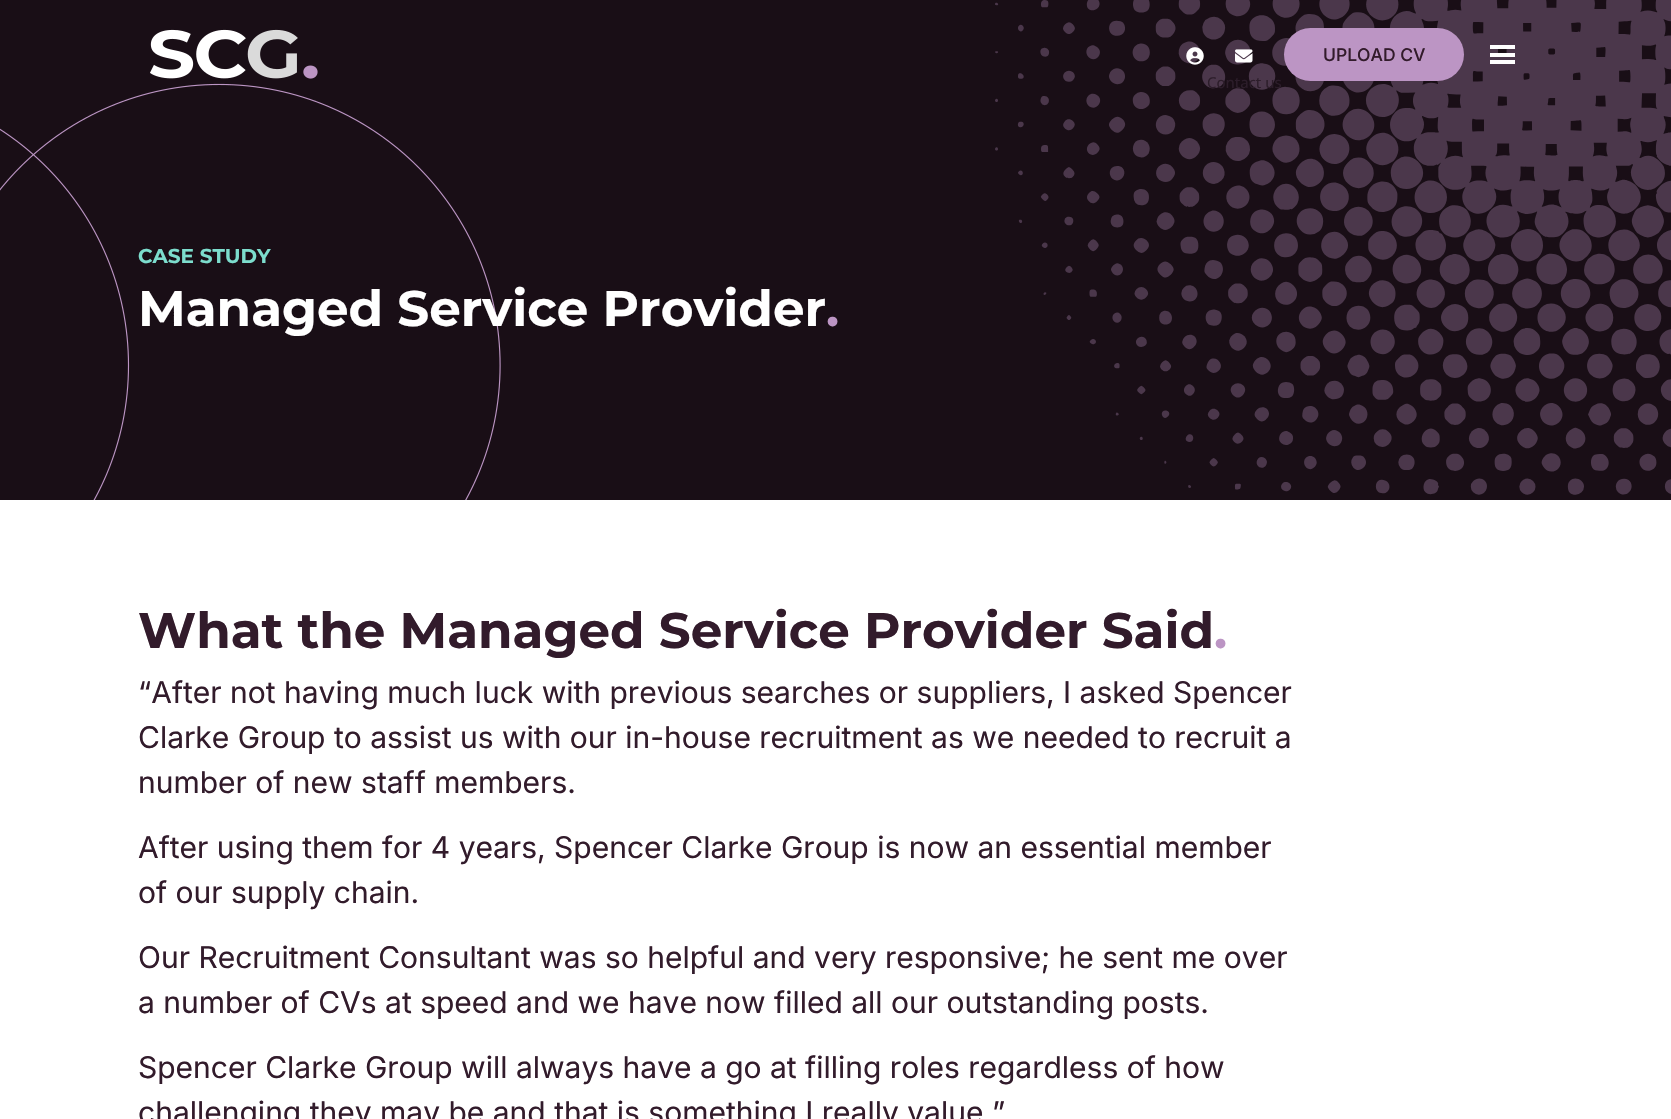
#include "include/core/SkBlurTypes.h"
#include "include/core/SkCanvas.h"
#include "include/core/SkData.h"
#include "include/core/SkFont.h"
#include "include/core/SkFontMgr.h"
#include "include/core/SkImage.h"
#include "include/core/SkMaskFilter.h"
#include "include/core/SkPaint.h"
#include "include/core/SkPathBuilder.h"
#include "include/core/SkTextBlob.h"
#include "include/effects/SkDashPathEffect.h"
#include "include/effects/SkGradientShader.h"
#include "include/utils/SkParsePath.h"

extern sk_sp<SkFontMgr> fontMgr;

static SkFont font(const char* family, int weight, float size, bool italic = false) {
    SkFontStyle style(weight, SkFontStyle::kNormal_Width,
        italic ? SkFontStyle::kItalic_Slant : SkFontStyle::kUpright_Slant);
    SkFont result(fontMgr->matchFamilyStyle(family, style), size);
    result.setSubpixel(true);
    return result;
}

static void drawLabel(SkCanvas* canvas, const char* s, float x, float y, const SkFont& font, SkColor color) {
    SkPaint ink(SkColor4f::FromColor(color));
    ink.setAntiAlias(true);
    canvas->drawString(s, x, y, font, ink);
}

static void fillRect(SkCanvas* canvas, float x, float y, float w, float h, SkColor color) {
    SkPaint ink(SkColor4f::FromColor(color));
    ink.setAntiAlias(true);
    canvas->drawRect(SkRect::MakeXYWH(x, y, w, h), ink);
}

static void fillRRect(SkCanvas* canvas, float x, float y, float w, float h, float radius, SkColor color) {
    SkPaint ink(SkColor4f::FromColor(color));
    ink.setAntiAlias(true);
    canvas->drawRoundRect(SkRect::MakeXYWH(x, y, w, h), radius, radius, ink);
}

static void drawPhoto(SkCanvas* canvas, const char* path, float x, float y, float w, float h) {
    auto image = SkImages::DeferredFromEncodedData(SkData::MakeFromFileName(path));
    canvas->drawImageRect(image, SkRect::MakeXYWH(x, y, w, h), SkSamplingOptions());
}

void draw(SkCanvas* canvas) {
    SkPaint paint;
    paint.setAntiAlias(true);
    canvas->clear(0xFFFFFFFF);
    fillRect(canvas, 0, 0, 1671, 500, 0xFF190E16);
    drawPhoto(canvas, "assets/img1.png", 150, 29, 168, 50);
    drawPhoto(canvas, "assets/img5.png", 995, 0, 676, 495);
    drawPhoto(canvas, "assets/img2.png", 1186, 47, 18, 18);
    fillRRect(canvas, 1284, 28, 180, 53, 26.5f, 0xFFBC95C4);
    SkFont font1 = font("Inter", 500, 17.5f);
    drawLabel(canvas, "UPLOAD CV", 1323, 61, font1, 0xFF321B2B);
    fillRect(canvas, 1490, 53, 25, 4, 0xFFFFFFFF);
    fillRect(canvas, 1490, 45, 25, 4, 0xFFFFFFFF);
    fillRect(canvas, 1490, 60, 25, 4, 0xFFFFFFFF);
    drawPhoto(canvas, "assets/img3.png", 1235, 49, 18, 14);
    SkFont font2 = font("Noto Sans", 400, 15);
    drawLabel(canvas, "Contact us", 1207, 88, font2, 0xFF2C1D2A);
    drawPhoto(canvas, "assets/img4.png", 0, 83, 501, 417);
    SkFont font3 = font("Montserrat", 700, 20);
    drawLabel(canvas, "CASE STUDY", 138, 263, font3, 0xFF7CDDCD);
    SkFont font4 = font("Montserrat", 700, 50);
    drawLabel(canvas, "Managed Service Provider", 138, 326, font4, 0xFFFFFFFF);
    drawLabel(canvas, ".", 826, 326, font4, 0xFFBC95C4);
    drawLabel(canvas, "What the Managed Service Provider Said", 138, 648, font4, 0xFF321B2B);
    drawLabel(canvas, ".", 1214, 648, font4, 0xFFBC95C4);
    SkFont font5 = font("Inter", 400, 30);
    drawLabel(canvas, "“After not having much luck with previous searches or suppliers, I asked Spencer", 138, 703, font5, 0xFF321B2B);
    drawLabel(canvas, "Clarke Group to assist us with our in-house recruitment as we needed to recruit a", 138, 748, font5, 0xFF321B2B);
    drawLabel(canvas, "number of new staff members.", 138, 793, font5, 0xFF321B2B);
    drawLabel(canvas, "After using them for 4 years, Spencer Clarke Group is now an essential member", 138, 858, font5, 0xFF321B2B);
    drawLabel(canvas, "of our supply chain.", 138, 903, font5, 0xFF321B2B);
    drawLabel(canvas, "Our Recruitment Consultant was so helpful and very responsive; he sent me over", 138, 968, font5, 0xFF321B2B);
    drawLabel(canvas, "a number of CVs at speed and we have now filled all our outstanding posts.", 138, 1013, font5, 0xFF321B2B);
    drawLabel(canvas, "Spencer Clarke Group will always have a go at filling roles regardless of how", 138, 1078, font5, 0xFF321B2B);
    drawLabel(canvas, "challenging they may be and that is something I really value.”", 138, 1123, font5, 0xFF321B2B);
}
